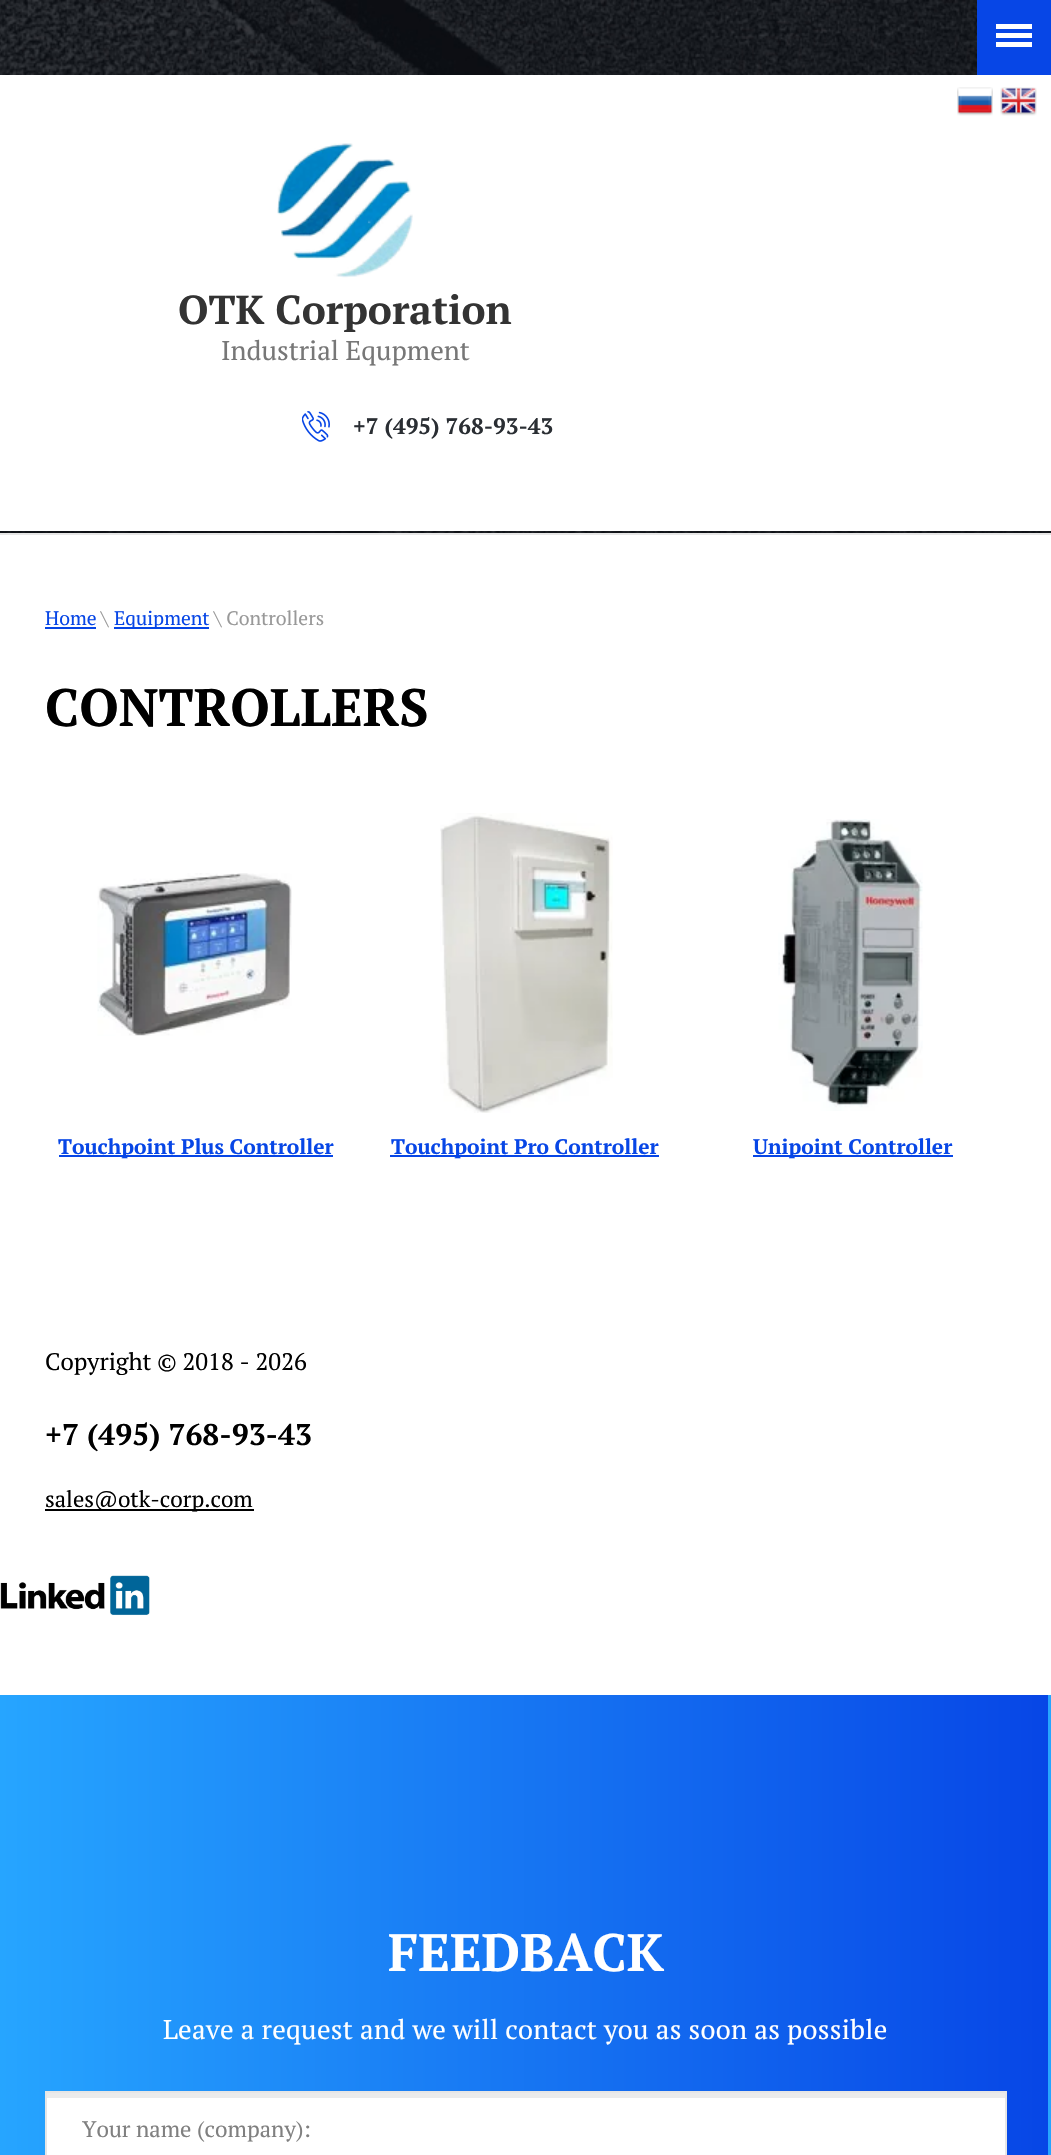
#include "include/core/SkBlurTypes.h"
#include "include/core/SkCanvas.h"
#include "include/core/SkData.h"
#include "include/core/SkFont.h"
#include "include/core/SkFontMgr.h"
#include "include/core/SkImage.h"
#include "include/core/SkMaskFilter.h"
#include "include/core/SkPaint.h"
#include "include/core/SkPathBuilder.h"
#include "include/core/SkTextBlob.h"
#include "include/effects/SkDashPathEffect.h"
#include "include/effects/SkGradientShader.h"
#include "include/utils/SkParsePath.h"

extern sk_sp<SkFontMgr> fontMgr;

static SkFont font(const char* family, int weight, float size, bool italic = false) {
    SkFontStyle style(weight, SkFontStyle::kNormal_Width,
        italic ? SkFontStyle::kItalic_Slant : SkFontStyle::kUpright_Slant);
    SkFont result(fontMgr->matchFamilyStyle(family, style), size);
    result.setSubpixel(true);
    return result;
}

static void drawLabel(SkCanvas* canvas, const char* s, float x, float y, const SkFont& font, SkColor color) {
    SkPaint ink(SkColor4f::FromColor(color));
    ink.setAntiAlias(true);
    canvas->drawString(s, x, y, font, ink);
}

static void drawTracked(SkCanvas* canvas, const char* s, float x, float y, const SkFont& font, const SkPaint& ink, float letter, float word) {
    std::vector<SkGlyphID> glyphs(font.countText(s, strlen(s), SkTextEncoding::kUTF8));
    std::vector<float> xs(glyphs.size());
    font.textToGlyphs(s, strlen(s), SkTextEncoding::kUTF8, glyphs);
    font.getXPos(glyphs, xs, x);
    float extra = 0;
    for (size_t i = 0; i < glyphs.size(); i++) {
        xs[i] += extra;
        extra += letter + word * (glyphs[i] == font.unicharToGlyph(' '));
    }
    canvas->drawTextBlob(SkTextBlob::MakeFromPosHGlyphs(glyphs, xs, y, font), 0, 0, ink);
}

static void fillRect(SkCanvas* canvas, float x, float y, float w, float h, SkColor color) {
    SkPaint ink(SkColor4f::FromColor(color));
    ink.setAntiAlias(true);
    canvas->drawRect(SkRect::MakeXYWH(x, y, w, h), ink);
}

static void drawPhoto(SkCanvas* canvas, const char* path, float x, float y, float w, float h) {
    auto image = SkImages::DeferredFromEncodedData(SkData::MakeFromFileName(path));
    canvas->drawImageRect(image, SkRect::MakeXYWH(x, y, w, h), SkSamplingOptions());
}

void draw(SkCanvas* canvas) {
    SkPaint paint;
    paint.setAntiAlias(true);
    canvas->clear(0xFFFFFFFF);
    drawPhoto(canvas, "assets/img1.png", 0, 0, 1051, 533);
    fillRect(canvas, 977, 0, 74, 75, 0xFF0746E6);
    fillRect(canvas, 996, 24, 36, 5, 0xFFFFFFFF);
    fillRect(canvas, 996, 33, 36, 5, 0xFFFFFFFF);
    fillRect(canvas, 996, 42, 36, 5, 0xFFFFFFFF);
    fillRect(canvas, 0, 75, 1051, 456, 0xFFFFFFFF);
    drawPhoto(canvas, "assets/img2.png", 957, 87, 36, 29);
    drawPhoto(canvas, "assets/img3.png", 1000, 87, 37, 29);
    drawPhoto(canvas, "assets/img4.png", 277, 143, 136, 135);
    SkFont font1 = font("PT Serif", 700, 40.5f);
    drawLabel(canvas, "OTK Corporation", 178, 324, font1, 0xFF333333);
    SkFont font2 = font("PT Serif", 400, 27);
    drawLabel(canvas, "Industrial Equpment", 221, 360, font2, 0xFF777777);
    drawPhoto(canvas, "assets/img5.png", 302, 411, 28, 31);
    SkFont font3 = font("PT Serif", 700, 22.5f);
    drawLabel(canvas, "+7 (495) 768-93-43", 353, 434, font3, 0xFF2A2E33);
    fillRect(canvas, 0, 533, 1051, 2, 0xFFE6E6E6);
    SkFont font4 = font("PT Serif", 400, 19.5f);
    drawLabel(canvas, "Home", 45, 625, font4, 0xFF0746E6);
    fillRect(canvas, 45, 627, 51, 2, 0xFF0746E6);
    drawLabel(canvas, "\\", 101, 625, font4, 0xFF999999);
    fillRect(canvas, 114, 627, 95, 2, 0xFF0746E6);
    drawLabel(canvas, "Equipment", 114, 625, font4, 0xFF0746E6);
    drawLabel(canvas, "\\ Controllers", 214, 625, font4, 0xFF999999);
    SkFont font5 = font("PT Serif", 700, 52.5f);
    drawLabel(canvas, "CONTROLLERS", 45, 726, font5, 0xFF000000);
    drawPhoto(canvas, "assets/img6.png", 97, 873, 195, 163);
    fillRect(canvas, 59, 1155, 274, 2, 0xFF0746E6);
    SkFont font6 = font("PT Serif", 700, 21);
    drawLabel(canvas, "Touchpoint Plus Controller", 58, 1154, font6, 0xFF0746E6);
    drawPhoto(canvas, "assets/img7.png", 440, 813, 173, 300);
    fillRect(canvas, 390, 1155, 269, 2, 0xFF0746E6);
    drawLabel(canvas, "Touchpoint Pro Controller", 391, 1154, font6, 0xFF0746E6);
    drawPhoto(canvas, "assets/img8.png", 778, 819, 145, 292);
    fillRect(canvas, 753, 1155, 200, 2, 0xFF0746E6);
    drawLabel(canvas, "Unipoint Controller", 753, 1154, font6, 0xFF0746E6);
    SkFont font7 = font("PT Serif", 400, 24);
    drawLabel(canvas, "Copyright © 2018 - 2026", 45, 1370, font7, 0xFF000000);
    SkFont font8 = font("PT Serif", 700, 30);
    drawLabel(canvas, "+7 (495) 768-93-43", 45, 1445, font8, 0xFF000000);
    fillRect(canvas, 45, 1509, 209, 2, 0xFF000000);
    SkFont font9 = font("PT Serif", 400, 22.5f);
    drawLabel(canvas, "sales@otk-corp.com", 45, 1507, font9, 0xFF000000);
    drawPhoto(canvas, "assets/img9.png", 0, 1575, 150, 41);
    {
        const SkColor colors[] = {0xFF26A5FF, 0xFF0746E6, 0xFF26A5FF, 0xFF0746E6};
        const float stops[] = {0, 0.5f, 0.5f, 1};
        const SkPoint ends[] = {{0, 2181}, {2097, 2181}};
        paint.setShader(SkGradientShader::MakeLinear(ends, colors, stops, 4, SkTileMode::kClamp));
        paint.setAlpha(255);
    }
    canvas->drawRect(SkRect::MakeXYWH(0, 1695, 1051, 460), paint);
    drawLabel(canvas, "FEEDBACK", 388, 1971, font5, 0xFFFFFFFF);
    paint.setShader(nullptr);
    paint.setColor(0xFFFFFFFF);
    drawTracked(canvas, "Leave a request and we will contact you as soon as possible", 163, 2039, font2, paint, 0.3f, 0);
    fillRect(canvas, 47, 2098, 958, 57, 0xFFFFFFFF);
    fillRect(canvas, 47, 2093, 958, 5, 0xFFEBEBEB);
    paint.setStroke(true);
    paint.setStrokeWidth(2);
    paint.setColor(0xFFE6E6E6);
    canvas->drawRect(SkRect::MakeXYWH(46, 2092, 960, 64), paint);
    drawLabel(canvas, "Your name (company):", 82, 2137, font9, 0xFF808080);
}
